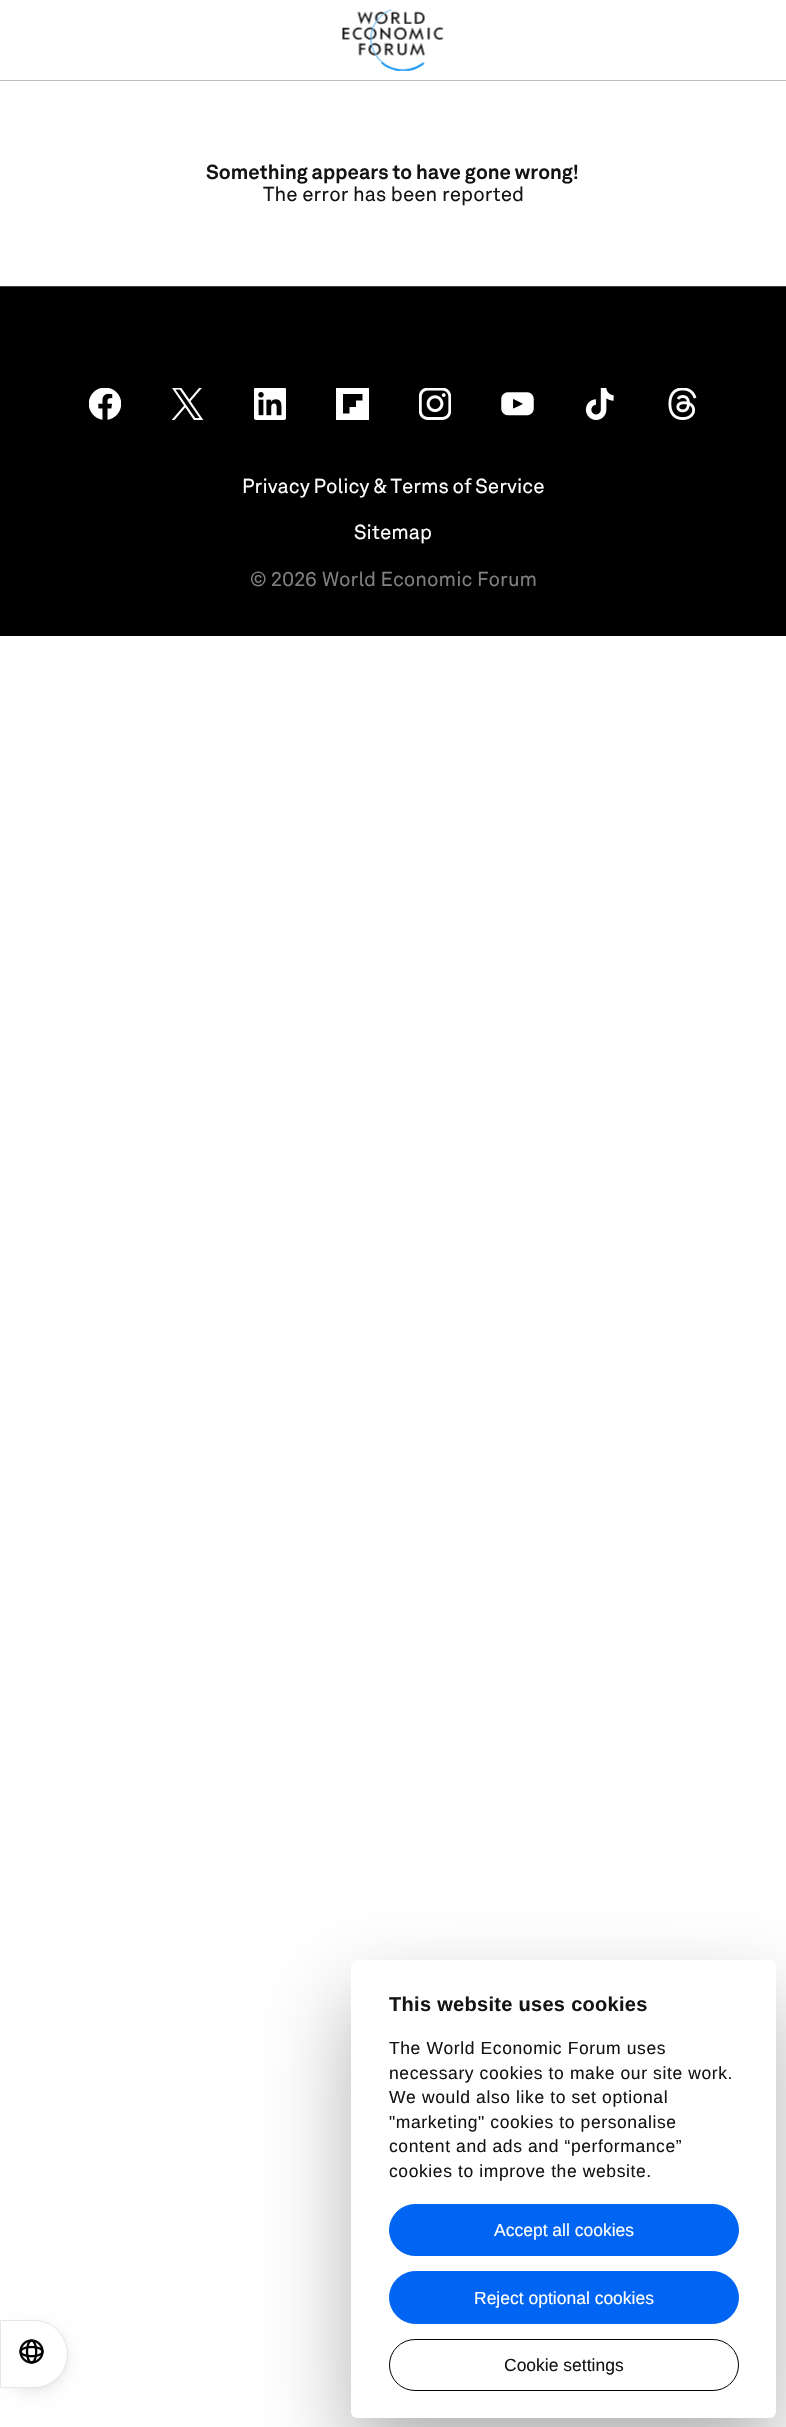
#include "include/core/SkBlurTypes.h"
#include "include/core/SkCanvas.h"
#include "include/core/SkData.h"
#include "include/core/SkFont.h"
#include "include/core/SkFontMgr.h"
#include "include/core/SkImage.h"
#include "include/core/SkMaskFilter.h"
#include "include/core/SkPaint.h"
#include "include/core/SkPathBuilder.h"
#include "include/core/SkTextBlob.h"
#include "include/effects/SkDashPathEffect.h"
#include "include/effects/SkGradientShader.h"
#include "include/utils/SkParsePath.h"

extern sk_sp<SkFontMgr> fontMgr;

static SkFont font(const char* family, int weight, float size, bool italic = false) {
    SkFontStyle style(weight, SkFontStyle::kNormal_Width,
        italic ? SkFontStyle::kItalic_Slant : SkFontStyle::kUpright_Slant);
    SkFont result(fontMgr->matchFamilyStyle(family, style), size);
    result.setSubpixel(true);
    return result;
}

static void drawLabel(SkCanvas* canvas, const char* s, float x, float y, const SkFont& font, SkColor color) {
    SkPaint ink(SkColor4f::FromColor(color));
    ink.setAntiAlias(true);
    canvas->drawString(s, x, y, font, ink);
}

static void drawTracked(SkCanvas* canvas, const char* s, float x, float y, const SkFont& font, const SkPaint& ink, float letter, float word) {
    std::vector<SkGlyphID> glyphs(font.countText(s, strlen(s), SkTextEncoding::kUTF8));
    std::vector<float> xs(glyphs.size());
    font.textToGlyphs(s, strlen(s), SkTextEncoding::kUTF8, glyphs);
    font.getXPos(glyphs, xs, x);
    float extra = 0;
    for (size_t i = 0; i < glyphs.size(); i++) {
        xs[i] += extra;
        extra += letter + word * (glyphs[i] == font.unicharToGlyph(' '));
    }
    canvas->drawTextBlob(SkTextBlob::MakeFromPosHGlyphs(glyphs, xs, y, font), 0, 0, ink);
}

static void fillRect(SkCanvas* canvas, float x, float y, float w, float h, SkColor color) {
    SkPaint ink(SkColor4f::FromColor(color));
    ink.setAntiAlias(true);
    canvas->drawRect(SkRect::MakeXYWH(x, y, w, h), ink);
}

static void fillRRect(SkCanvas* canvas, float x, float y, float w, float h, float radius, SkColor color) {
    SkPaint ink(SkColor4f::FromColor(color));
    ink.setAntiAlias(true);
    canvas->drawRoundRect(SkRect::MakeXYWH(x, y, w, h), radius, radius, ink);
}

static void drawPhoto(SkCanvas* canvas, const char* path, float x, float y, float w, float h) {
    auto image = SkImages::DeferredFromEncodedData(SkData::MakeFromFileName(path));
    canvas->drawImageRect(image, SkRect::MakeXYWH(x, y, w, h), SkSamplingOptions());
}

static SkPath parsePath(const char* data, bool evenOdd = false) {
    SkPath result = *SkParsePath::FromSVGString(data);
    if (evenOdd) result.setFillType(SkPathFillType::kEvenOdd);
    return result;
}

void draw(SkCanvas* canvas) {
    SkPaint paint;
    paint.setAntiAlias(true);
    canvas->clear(0xFFFFFFFF);
    fillRect(canvas, 0, 80, 786, 1, 0xFFBFBFBF);
    drawPhoto(canvas, "assets/img1.png", 342, 9, 102, 62);
    SkFont font1 = font("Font", 700, 20);
    paint.setColor(0xFF141414);
    drawTracked(canvas, "Something appears to have gone wrong!", 206, 179, font1, paint, 0, -0.5f);
    SkFont font2 = font("Font", 400, 20);
    drawLabel(canvas, "The error has been reported", 263, 201, font2, 0xFF141414);
    fillRect(canvas, 0, 287, 786, 349, 0xFF000000);
    fillRect(canvas, 0, 286, 786, 1, 0xFF404040);
    drawPhoto(canvas, "assets/img2.png", 89, 388, 32, 32);
    drawPhoto(canvas, "assets/img3.png", 171, 388, 33, 32);
    drawPhoto(canvas, "assets/img4.png", 254, 388, 32, 32);
    canvas->save();
    canvas->clipRect(SkRect::MakeXYWH(336, 388, 33, 32));
    paint.setColor(0xFFFFFFFF);
    canvas->drawPath(parsePath("M369 387.5H336V420H369ZM356 400.5H362.5V394H343V413.5H349.5V407H356Z", true), paint);
    canvas->restore();
    drawPhoto(canvas, "assets/img5.png", 419, 388, 32, 32);
    drawPhoto(canvas, "assets/img6.png", 501, 392, 33, 24);
    drawPhoto(canvas, "assets/img7.png", 585, 388, 29, 32);
    drawPhoto(canvas, "assets/img8.png", 668, 388, 29, 32);
    drawTracked(canvas, "Privacy Policy & Terms of Service", 242, 493, font2, paint, 0, -1);
    drawLabel(canvas, "Sitemap", 354, 539, font2, 0xFFFFFFFF);
    drawLabel(canvas, "© 2026", 250, 586, font2, 0xFF808080);
    drawLabel(canvas, "World Economic Forum", 322, 586, font2, 0xFF808080);
    paint.setColor(0x0A000000);
    paint.setMaskFilter(SkMaskFilter::MakeBlur(kNormal_SkBlurStyle, 1));
    canvas->drawRoundRect(SkRect::MakeXYWH(0, 2321, 68, 68), 34, 34, paint);
    paint.setMaskFilter(nullptr);
    paint.setColor(0x14000000);
    paint.setMaskFilter(SkMaskFilter::MakeBlur(kNormal_SkBlurStyle, 7.5f));
    canvas->drawRoundRect(SkRect::MakeXYWH(0, 2325, 68, 68), 34, 34, paint);
    paint.setMaskFilter(nullptr);
    paint.setColor(0xFFFFFFFF);
    canvas->drawPath(parsePath("M.5 2320.5H34C52.5 2320.5 67.5 2335.5 67.5 2354C67.5 2372.5 52.5 2387.5 34 2387.5H.5Z"), paint);
    paint.setStroke(true);
    paint.setStrokeWidth(1);
    paint.setColor(0xFFE6E6E6);
    canvas->drawPath(parsePath("M.5 2320.5H34C52.5 2320.5 67.5 2335.5 67.5 2354C67.5 2372.5 52.5 2387.5 34 2387.5H.5Z"), paint);
    drawPhoto(canvas, "assets/img9.png", 19, 2339, 25, 25);
    paint.setStroke(false);
    paint.setColor(0x4D000000);
    paint.setMaskFilter(SkMaskFilter::MakeBlur(kNormal_SkBlurStyle, 42.5f));
    canvas->drawRoundRect(SkRect::MakeXYWH(351, 2000, 425, 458), 6, 6, paint);
    paint.setMaskFilter(nullptr);
    fillRRect(canvas, 351, 1960, 425, 458, 6, 0xFFFFFFFF);
    SkFont font3 = font("Liberation Sans", 700, 20);
    paint.setColor(0xFF141414);
    drawTracked(canvas, "This website uses cookies", 389, 2011, font3, paint, 0.3f, 0);
    SkFont font4 = font("Liberation Sans", 400, 17.5f);
    drawTracked(canvas, "The World Economic Forum uses", 389, 2054, font4, paint, 0.6f, 0);
    drawTracked(canvas, "necessary cookies to make our site work.", 389, 2079, font4, paint, 0.6f, 0);
    drawTracked(canvas, "We would also like to set optional", 389, 2103, font4, paint, 0.6f, 0);
    drawTracked(canvas, "\"marketing\" cookies to personalise", 389, 2128, font4, paint, 0.6f, 0);
    drawTracked(canvas, "content and ads and “performance”", 389, 2152, font4, paint, 0.6f, 0);
    drawTracked(canvas, "cookies to improve the website.", 389, 2177, font4, paint, 0.6f, 0);
    paint.setColor(0xFF0065F2);
    canvas->drawRoundRect(SkRect::MakeXYWH(389.5f, 2204.5f, 349, 51), 25.5f, 25.5f, paint);
    paint.setStroke(true);
    canvas->drawRoundRect(SkRect::MakeXYWH(389.5f, 2204.5f, 349, 51), 25.5f, 25.5f, paint);
    drawLabel(canvas, "Accept all cookies", 494, 2236, font4, 0xFFFFFFFF);
    paint.setStroke(false);
    canvas->drawRoundRect(SkRect::MakeXYWH(389.5f, 2271.5f, 349, 52), 26, 26, paint);
    paint.setStroke(true);
    canvas->drawRoundRect(SkRect::MakeXYWH(389.5f, 2271.5f, 349, 52), 26, 26, paint);
    drawLabel(canvas, "Reject optional cookies", 474, 2304, font4, 0xFFFFFFFF);
    paint.setColor(0xFF000000);
    canvas->drawRoundRect(SkRect::MakeXYWH(389.5f, 2339.5f, 349, 51), 25.5f, 25.5f, paint);
    drawLabel(canvas, "Cookie settings", 504, 2371, font4, 0xFF141414);
}
